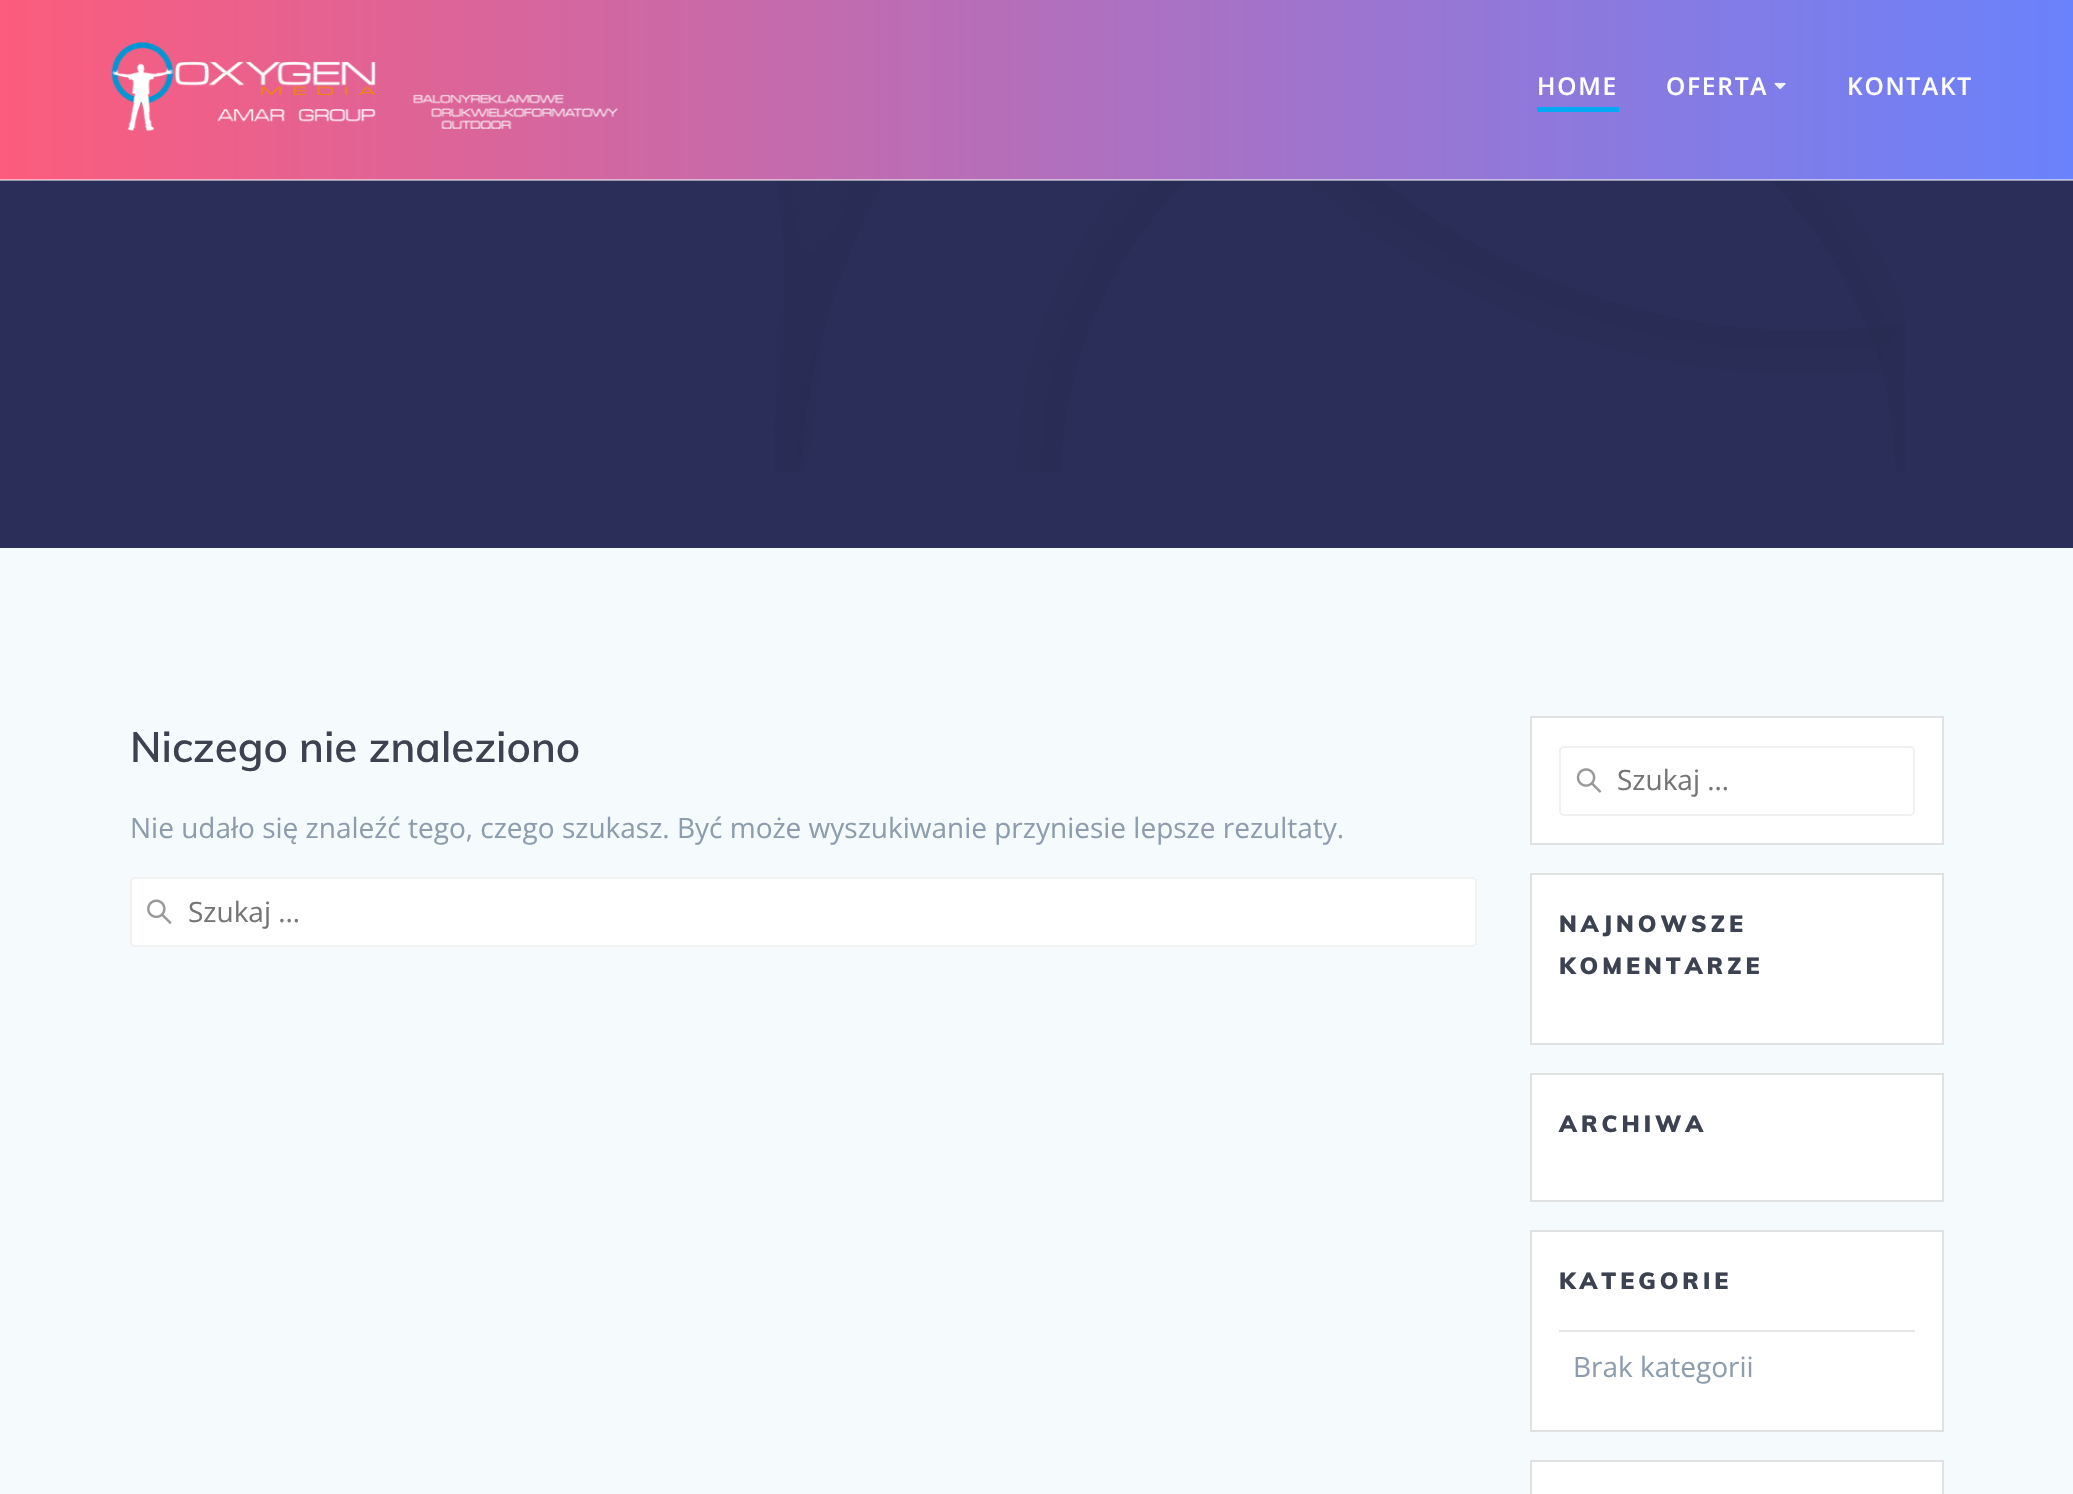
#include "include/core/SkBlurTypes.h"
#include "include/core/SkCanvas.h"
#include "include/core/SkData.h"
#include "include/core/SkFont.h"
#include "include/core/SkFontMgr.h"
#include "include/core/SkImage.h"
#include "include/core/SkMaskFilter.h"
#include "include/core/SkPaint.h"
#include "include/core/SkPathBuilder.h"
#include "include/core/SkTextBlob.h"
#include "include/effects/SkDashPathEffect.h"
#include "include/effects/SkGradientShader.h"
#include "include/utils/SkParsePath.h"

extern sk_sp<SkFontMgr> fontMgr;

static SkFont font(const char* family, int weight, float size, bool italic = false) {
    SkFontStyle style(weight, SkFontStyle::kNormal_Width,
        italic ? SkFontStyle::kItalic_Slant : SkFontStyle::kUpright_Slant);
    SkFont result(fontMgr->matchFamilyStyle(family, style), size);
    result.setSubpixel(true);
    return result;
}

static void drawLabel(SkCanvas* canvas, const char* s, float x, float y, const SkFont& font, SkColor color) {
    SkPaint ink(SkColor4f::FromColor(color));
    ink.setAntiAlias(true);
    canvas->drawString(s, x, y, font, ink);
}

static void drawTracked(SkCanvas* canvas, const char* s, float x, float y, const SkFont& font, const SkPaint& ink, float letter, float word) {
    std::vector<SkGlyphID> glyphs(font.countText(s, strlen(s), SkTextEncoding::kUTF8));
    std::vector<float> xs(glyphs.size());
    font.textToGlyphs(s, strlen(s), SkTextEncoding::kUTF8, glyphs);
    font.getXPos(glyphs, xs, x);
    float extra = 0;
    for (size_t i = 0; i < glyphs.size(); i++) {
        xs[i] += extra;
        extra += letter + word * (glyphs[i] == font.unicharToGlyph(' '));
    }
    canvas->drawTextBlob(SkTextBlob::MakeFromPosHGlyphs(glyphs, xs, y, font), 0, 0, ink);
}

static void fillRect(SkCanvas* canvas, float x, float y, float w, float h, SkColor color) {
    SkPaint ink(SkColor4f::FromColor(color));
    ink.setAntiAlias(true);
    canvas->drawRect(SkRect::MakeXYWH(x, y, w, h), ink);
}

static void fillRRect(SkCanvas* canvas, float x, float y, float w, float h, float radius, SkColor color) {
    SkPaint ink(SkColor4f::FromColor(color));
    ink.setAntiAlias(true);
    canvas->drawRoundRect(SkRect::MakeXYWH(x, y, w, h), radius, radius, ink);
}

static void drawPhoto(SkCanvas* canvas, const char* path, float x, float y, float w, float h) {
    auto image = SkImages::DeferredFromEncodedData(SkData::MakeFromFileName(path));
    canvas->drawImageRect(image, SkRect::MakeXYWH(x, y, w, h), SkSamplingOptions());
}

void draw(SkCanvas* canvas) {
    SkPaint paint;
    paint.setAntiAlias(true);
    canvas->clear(0xFF2A2E58);
    {
        const SkColor colors[] = {0xFFFC5C7D, 0xFF6A82FB};
        const float stops[] = {0, 1};
        const SkPoint ends[] = {{0, 89}, {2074, 89}};
        paint.setShader(SkGradientShader::MakeLinear(ends, colors, stops, 2, SkTileMode::kClamp));
        paint.setAlpha(255);
    }
    canvas->drawRect(SkRect::MakeXYWH(0, 0, 2073, 180), paint);
    drawPhoto(canvas, "assets/img3.png", 775, 180, 1130, 292);
    fillRect(canvas, 0, 179, 2073, 2, 0x80FFFFFF);
    drawPhoto(canvas, "assets/img1.png", 111, 42, 507, 89);
    fillRect(canvas, 1537, 107, 82, 5, 0xFF03A9F4);
    SkFont font1 = font("Open Sans", 600, 24.5f);
    paint.setShader(nullptr);
    paint.setColor(0xFFFFFFFF);
    drawTracked(canvas, "HOME", 1537, 95, font1, paint, 1.75f, 0);
    drawTracked(canvas, "OFERTA", 1666, 95, font1, paint, 1.75f, 0);
    drawPhoto(canvas, "assets/img2.png", 1774, 82, 12, 8);
    drawTracked(canvas, "KONTAKT", 1847, 95, font1, paint, 1.75f, 0);
    fillRect(canvas, 0, 548, 2073, 946, 0xFFF5FAFD);
    SkFont font2 = font("Muli", 600, 42);
    drawLabel(canvas, "Niczego nie znaleziono", 130, 762, font2, 0xFF3C424F);
    SkFont font3 = font("Open Sans", 400, 28);
    drawLabel(canvas, "Nie udało się znaleźć tego, czego szukasz. Być może wyszukiwanie przyniesie lepsze rezultaty.", 130, 838, font3, 0xFF8E9DAE);
    fillRRect(canvas, 130, 877, 1347, 70, 5, 0xFFFFFFFF);
    drawPhoto(canvas, "assets/img4.png", 147, 899, 25, 25);
    paint.setStroke(true);
    paint.setStrokeWidth(2);
    paint.setColor(0xFFF1F1F1);
    canvas->drawRoundRect(SkRect::MakeXYWH(131, 878, 1345, 68), 4, 4, paint);
    drawLabel(canvas, "Szukaj …", 188, 922, font3, 0xFF757575);
    paint.setStroke(false);
    paint.setColor(0xFFFFFFFF);
    canvas->drawRect(SkRect::MakeXYWH(1531, 717, 412, 127), paint);
    paint.setStroke(true);
    paint.setColor(0xFFE0E1E1);
    canvas->drawRect(SkRect::MakeXYWH(1531, 717, 412, 127), paint);
    drawPhoto(canvas, "assets/img5.png", 1576, 768, 26, 25);
    paint.setColor(0xFFF1F1F1);
    canvas->drawRoundRect(SkRect::MakeXYWH(1560, 747, 354, 68), 4, 4, paint);
    drawLabel(canvas, "Szukaj …", 1617, 790, font3, 0xFF757575);
    paint.setStroke(false);
    paint.setColor(0xFFFFFFFF);
    canvas->drawRect(SkRect::MakeXYWH(1531, 874, 412, 170), paint);
    paint.setStroke(true);
    paint.setColor(0xFFE0E1E1);
    canvas->drawRect(SkRect::MakeXYWH(1531, 874, 412, 170), paint);
    SkFont font4 = font("Muli", 900, 23.25f);
    paint.setStroke(false);
    paint.setColor(0xFF3C424F);
    drawTracked(canvas, "NAJNOWSZE", 1559, 932, font4, paint, 4, 0);
    drawTracked(canvas, "KOMENTARZE", 1559, 974, font4, paint, 4, 0);
    paint.setColor(0xFFFFFFFF);
    canvas->drawRect(SkRect::MakeXYWH(1531, 1074, 412, 127), paint);
    paint.setStroke(true);
    paint.setColor(0xFFE0E1E1);
    canvas->drawRect(SkRect::MakeXYWH(1531, 1074, 412, 127), paint);
    paint.setStroke(false);
    paint.setColor(0xFF3C424F);
    drawTracked(canvas, "ARCHIWA", 1559, 1132, font4, paint, 4, 0);
    paint.setColor(0xFFFFFFFF);
    canvas->drawRect(SkRect::MakeXYWH(1531, 1231, 412, 200), paint);
    paint.setStroke(true);
    paint.setColor(0xFFE0E1E1);
    canvas->drawRect(SkRect::MakeXYWH(1531, 1231, 412, 200), paint);
    paint.setStroke(false);
    paint.setColor(0xFF3C424F);
    drawTracked(canvas, "KATEGORIE", 1559, 1289, font4, paint, 4, 0);
    fillRect(canvas, 1559, 1330, 356, 2, 0xFFE6E6E6);
    drawLabel(canvas, "Brak kategorii", 1573, 1377, font3, 0xFF8E9DAE);
    paint.setColor(0xFFFFFFFF);
    canvas->drawRect(SkRect::MakeXYWH(1531, 1461, 412, 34), paint);
    paint.setStroke(true);
    paint.setColor(0xFFE0E1E1);
    canvas->drawRect(SkRect::MakeXYWH(1531, 1461, 412, 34), paint);
}
